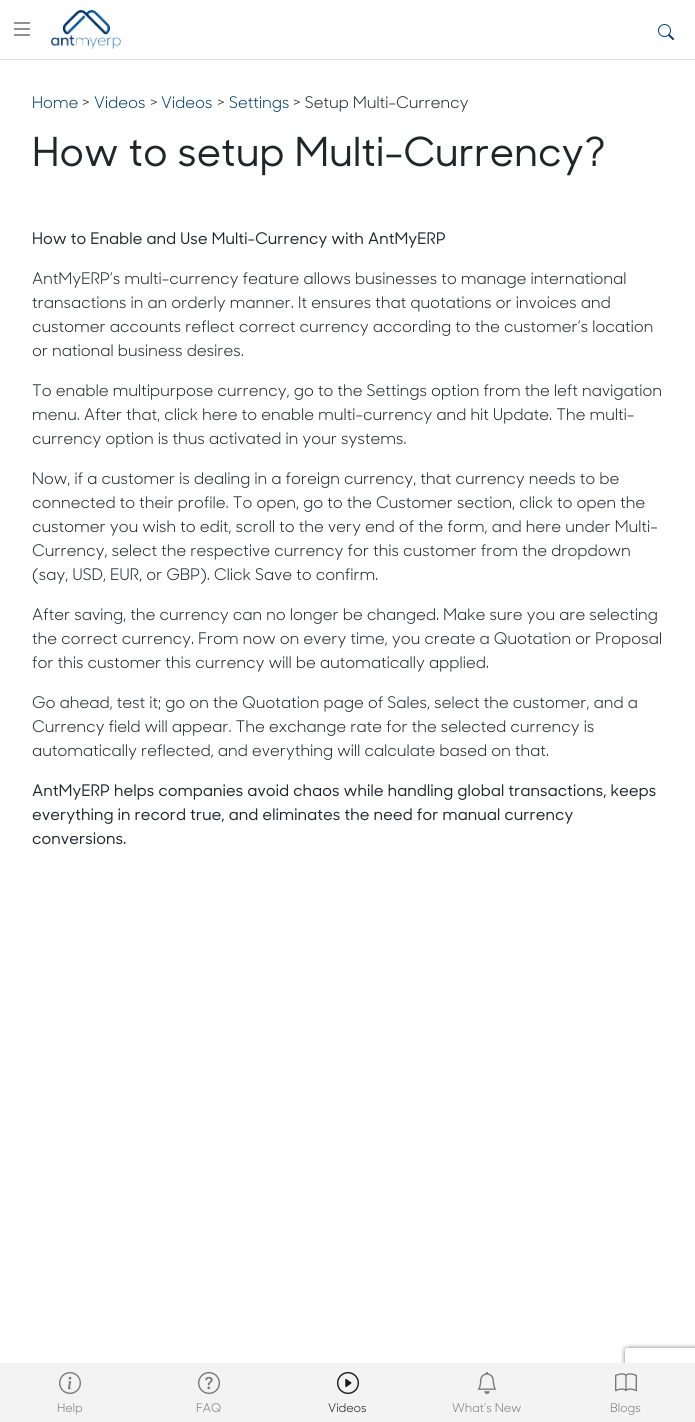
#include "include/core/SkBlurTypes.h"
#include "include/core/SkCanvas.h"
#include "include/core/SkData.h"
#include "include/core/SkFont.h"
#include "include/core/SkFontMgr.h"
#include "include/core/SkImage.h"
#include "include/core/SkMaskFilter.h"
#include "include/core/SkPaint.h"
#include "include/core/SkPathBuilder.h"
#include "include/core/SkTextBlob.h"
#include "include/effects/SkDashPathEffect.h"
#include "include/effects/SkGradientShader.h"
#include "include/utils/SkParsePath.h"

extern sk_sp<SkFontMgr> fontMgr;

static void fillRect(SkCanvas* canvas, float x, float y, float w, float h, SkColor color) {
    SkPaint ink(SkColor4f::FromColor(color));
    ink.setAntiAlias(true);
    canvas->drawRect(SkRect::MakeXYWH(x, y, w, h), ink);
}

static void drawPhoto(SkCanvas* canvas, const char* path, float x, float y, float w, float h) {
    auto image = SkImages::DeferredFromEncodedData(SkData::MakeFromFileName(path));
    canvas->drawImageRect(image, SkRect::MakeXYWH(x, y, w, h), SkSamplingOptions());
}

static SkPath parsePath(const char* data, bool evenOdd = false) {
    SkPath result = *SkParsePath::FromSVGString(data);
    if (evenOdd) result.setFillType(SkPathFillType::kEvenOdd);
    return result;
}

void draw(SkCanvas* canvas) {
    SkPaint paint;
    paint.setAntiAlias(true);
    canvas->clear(0xFFFFFFFF);
    fillRect(canvas, 0, 59, 695, 1, 0xFFE1E1E1);
    drawPhoto(canvas, "assets/img1.png", 13, 22, 18, 14);
    drawPhoto(canvas, "assets/img2.png", 51, 10, 70, 39);
    drawPhoto(canvas, "assets/img3.png", 658, 24, 16, 16);
    canvas->save();
    canvas->clipPath(parsePath("M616 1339H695V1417H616ZM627 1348H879C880 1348 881 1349 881 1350V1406C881 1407 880 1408 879 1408H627C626 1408 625 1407 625 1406V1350C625 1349 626 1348 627 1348Z", true), true);
    paint.setColor(0xFF808080);
    paint.setMaskFilter(SkMaskFilter::MakeBlur(kNormal_SkBlurStyle, 2.5f));
    canvas->drawRoundRect(SkRect::MakeXYWH(625, 1348, 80, 60), 2, 2, paint);
    paint.setMaskFilter(nullptr);
    canvas->restore();
    fillRect(canvas, 0, 1363, 695, 59, 0xFFF3F3F3);
    drawPhoto(canvas, "assets/img4.png", 59, 1372, 22, 22);
    drawPhoto(canvas, "assets/img5.png", 57, 1403, 25, 12);
    drawPhoto(canvas, "assets/img6.png", 198, 1372, 22, 22);
    drawPhoto(canvas, "assets/img7.png", 196, 1403, 25, 10);
    drawPhoto(canvas, "assets/img8.png", 337, 1372, 22, 22);
    drawPhoto(canvas, "assets/img9.png", 328, 1403, 38, 10);
    drawPhoto(canvas, "assets/img10.png", 477, 1372, 20, 22);
    drawPhoto(canvas, "assets/img11.png", 452, 1403, 69, 10);
    drawPhoto(canvas, "assets/img12.png", 615, 1373, 22, 19);
    drawPhoto(canvas, "assets/img13.png", 610, 1403, 31, 12);
    drawPhoto(canvas, "assets/img14.png", 33, 96, 45, 13);
    drawPhoto(canvas, "assets/img15.png", 82, 99, 7, 6);
    drawPhoto(canvas, "assets/img16.png", 94, 96, 51, 13);
    drawPhoto(canvas, "assets/img15.png", 150, 99, 7, 6);
    drawPhoto(canvas, "assets/img16.png", 161, 96, 51, 13);
    drawPhoto(canvas, "assets/img15.png", 217, 99, 7, 6);
    drawPhoto(canvas, "assets/img17.png", 229, 96, 60, 16);
    drawPhoto(canvas, "assets/img18.png", 293, 96, 175, 16);
    drawPhoto(canvas, "assets/img19.png", 34, 136, 570, 40);
    drawPhoto(canvas, "assets/img20.png", 33, 232, 412, 16);
    drawPhoto(canvas, "assets/img21.png", 32, 272, 594, 16);
    drawPhoto(canvas, "assets/img22.png", 32, 296, 578, 16);
    drawPhoto(canvas, "assets/img23.png", 32, 320, 621, 16);
    drawPhoto(canvas, "assets/img24.png", 32, 344, 211, 13);
    drawPhoto(canvas, "assets/img25.png", 32, 384, 629, 16);
    drawPhoto(canvas, "assets/img26.png", 33, 408, 601, 16);
    drawPhoto(canvas, "assets/img27.png", 32, 432, 374, 16);
    drawPhoto(canvas, "assets/img28.png", 33, 472, 586, 16);
    drawPhoto(canvas, "assets/img29.png", 32, 496, 613, 16);
    drawPhoto(canvas, "assets/img30.png", 32, 520, 625, 16);
    drawPhoto(canvas, "assets/img31.png", 32, 544, 598, 16);
    drawPhoto(canvas, "assets/img32.png", 32, 568, 346, 16);
    drawPhoto(canvas, "assets/img33.png", 32, 608, 625, 16);
    drawPhoto(canvas, "assets/img34.png", 32, 632, 629, 16);
    drawPhoto(canvas, "assets/img35.png", 32, 656, 456, 16);
    drawPhoto(canvas, "assets/img36.png", 32, 696, 605, 16);
    drawPhoto(canvas, "assets/img37.png", 32, 720, 562, 16);
    drawPhoto(canvas, "assets/img38.png", 32, 744, 516, 16);
    drawPhoto(canvas, "assets/img39.png", 32, 784, 624, 16);
    drawPhoto(canvas, "assets/img40.png", 32, 808, 541, 16);
    drawPhoto(canvas, "assets/img41.png", 32, 832, 94, 13);
}
